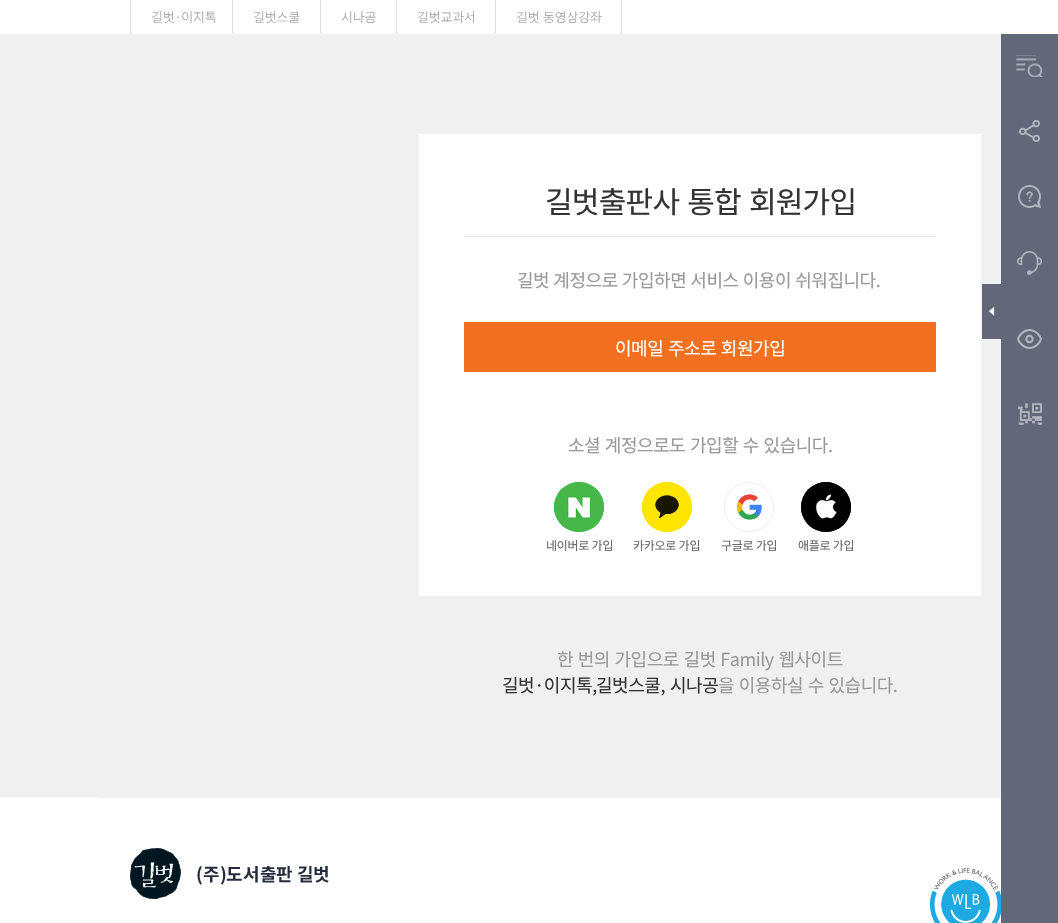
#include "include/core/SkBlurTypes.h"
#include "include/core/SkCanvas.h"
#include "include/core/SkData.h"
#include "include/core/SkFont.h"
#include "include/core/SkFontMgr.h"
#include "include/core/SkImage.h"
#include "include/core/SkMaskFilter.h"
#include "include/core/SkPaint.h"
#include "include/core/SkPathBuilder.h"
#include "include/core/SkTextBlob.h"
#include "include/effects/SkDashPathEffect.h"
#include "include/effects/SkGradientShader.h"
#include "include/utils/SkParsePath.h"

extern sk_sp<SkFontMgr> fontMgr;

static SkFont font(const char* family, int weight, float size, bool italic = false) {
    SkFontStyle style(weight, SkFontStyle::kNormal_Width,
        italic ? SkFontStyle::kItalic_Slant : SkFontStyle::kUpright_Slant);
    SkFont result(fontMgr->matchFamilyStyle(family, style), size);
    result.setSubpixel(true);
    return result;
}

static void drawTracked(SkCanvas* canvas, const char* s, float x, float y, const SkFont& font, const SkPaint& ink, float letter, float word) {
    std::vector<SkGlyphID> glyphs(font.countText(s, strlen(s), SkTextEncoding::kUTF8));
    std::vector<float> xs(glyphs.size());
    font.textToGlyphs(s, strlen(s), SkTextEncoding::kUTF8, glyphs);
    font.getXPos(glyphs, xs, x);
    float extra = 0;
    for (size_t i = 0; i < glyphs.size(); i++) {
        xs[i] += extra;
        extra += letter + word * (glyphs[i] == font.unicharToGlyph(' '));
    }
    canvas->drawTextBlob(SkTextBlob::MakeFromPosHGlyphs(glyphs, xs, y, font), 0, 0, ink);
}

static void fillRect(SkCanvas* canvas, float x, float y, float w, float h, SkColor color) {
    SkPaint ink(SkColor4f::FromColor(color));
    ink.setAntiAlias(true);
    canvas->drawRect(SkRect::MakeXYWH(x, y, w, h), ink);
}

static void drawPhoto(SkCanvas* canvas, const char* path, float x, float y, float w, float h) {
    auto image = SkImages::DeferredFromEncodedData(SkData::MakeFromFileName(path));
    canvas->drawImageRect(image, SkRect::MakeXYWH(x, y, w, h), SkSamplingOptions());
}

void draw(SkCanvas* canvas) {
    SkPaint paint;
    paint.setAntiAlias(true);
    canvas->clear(0xFFF0F0F0);
    fillRect(canvas, 0, 0, 1058, 34, 0xFFFFFFFF);
    fillRect(canvas, 130, 0, 1, 34, 0xFFE0E0E0);
    fillRect(canvas, 232, 0, 1, 34, 0xFFE0E0E0);
    SkFont font1 = font("Noto Sans KR", 300, 13);
    paint.setColor(0xFF999999);
    drawTracked(canvas, "길벗·이지톡", 151, 22, font1, paint, -0.25f, 0);
    fillRect(canvas, 320, 0, 1, 34, 0xFFE0E0E0);
    drawTracked(canvas, "길벗스쿨", 253, 22, font1, paint, -0.25f, 0);
    fillRect(canvas, 396, 0, 1, 34, 0xFFE0E0E0);
    drawTracked(canvas, "시나공", 341, 22, font1, paint, -0.25f, 0);
    fillRect(canvas, 495, 0, 1, 34, 0xFFE0E0E0);
    drawTracked(canvas, "길벗교과서", 417, 22, font1, paint, -0.25f, 0);
    fillRect(canvas, 621, 0, 1, 34, 0xFFE0E0E0);
    drawTracked(canvas, "길벗 동영상강좌", 516, 22, font1, paint, -0.25f, 1);
    fillRect(canvas, 419, 134, 562, 462, 0xFFFFFFFF);
    fillRect(canvas, 464, 236, 472, 1, 0xFFE6E6E6);
    SkFont font2 = font("Noto Sans KR", 400, 30);
    paint.setColor(0xFF333333);
    drawTracked(canvas, "길벗출판사 통합 회원가입", 545, 213, font2, paint, -0.75f, 2);
    SkFont font3 = font("Noto Sans KR", 400, 18);
    paint.setColor(0xFF999999);
    drawTracked(canvas, "길벗 계정으로 가입하면 서비스 이용이 쉬워집니다.", 517, 287, font3, paint, -0.45f, 0.5f);
    fillRect(canvas, 464, 322, 472, 50, 0xFFF37021);
    paint.setColor(0xFFFFFFFF);
    drawTracked(canvas, "이메일 주소로 회원가입", 615, 355, font3, paint, -0.45f, 1);
    paint.setColor(0xFF999999);
    drawTracked(canvas, "소셜 계정으로도 가입할 수 있습니다.", 568, 452, font3, paint, -0.45f, 1);
    paint.setColor(0xFF03C75A);
    canvas->drawCircle(579, 507, 25, paint);
    drawPhoto(canvas, "assets/img1.png", 554, 482, 50, 50);
    SkFont font4 = font("Noto Sans KR", 400, 12);
    paint.setColor(0xFF666666);
    drawTracked(canvas, "네이버로 가입", 546, 550, font4, paint, -0.25f, 0);
    paint.setColor(0xFFFEE500);
    canvas->drawCircle(667, 507, 25, paint);
    drawPhoto(canvas, "assets/img2.png", 642, 482, 50, 50);
    paint.setColor(0xFF666666);
    drawTracked(canvas, "카카오로 가입", 633, 550, font4, paint, -0.25f, 0);
    drawPhoto(canvas, "assets/img3.png", 737, 494, 25, 26);
    paint.setStroke(true);
    paint.setStrokeWidth(1);
    paint.setColor(0xFFEEEEEE);
    canvas->drawCircle(749, 507, 24.5f, paint);
    paint.setStroke(false);
    paint.setColor(0xFF666666);
    drawTracked(canvas, "구글로 가입", 721, 550, font4, paint, -0.25f, 0);
    paint.setColor(0xFF000000);
    canvas->drawCircle(826, 507, 25, paint);
    drawPhoto(canvas, "assets/img4.png", 801, 482, 50, 50);
    paint.setColor(0xFF666666);
    drawTracked(canvas, "애플로 가입", 798, 550, font4, paint, -0.25f, 0);
    paint.setColor(0xFF999999);
    drawTracked(canvas, "한 번의 가입으로 길벗 Family 웹사이트", 557, 666, font3, paint, -0.45f, 1);
    paint.setColor(0xFF333333);
    drawTracked(canvas, "길벗·이지톡,", 502, 692, font3, paint, -0.45f, 0);
    drawTracked(canvas, "길벗스쿨,", 596, 692, font3, paint, -0.45f, 0);
    drawTracked(canvas, "시나공", 670, 692, font3, paint, -0.45f, 0);
    paint.setColor(0xFF999999);
    drawTracked(canvas, "을 이용하실 수 있습니다.", 718, 692, font3, paint, -0.45f, 1);
    fillRect(canvas, 1001, 34, 57, 889, 0xFF626779);
    drawPhoto(canvas, "assets/img5.png", 1016, 55, 27, 22);
    drawPhoto(canvas, "assets/img6.png", 1019, 120, 21, 22);
    drawPhoto(canvas, "assets/img7.png", 1018, 185, 23, 23);
    drawPhoto(canvas, "assets/img8.png", 1017, 251, 25, 24);
    fillRect(canvas, 982, 284, 19, 55, 0xFF626779);
    drawPhoto(canvas, "assets/img9.png", 989, 307, 6, 9);
    drawPhoto(canvas, "assets/img10.png", 1017, 329, 25, 20);
    drawPhoto(canvas, "assets/img11.png", 1018, 403, 24, 22);
    fillRect(canvas, 0, 797, 1001, 126, 0xFFFFFFFF);
    fillRect(canvas, 100, 797, 901, 1, 0xFFF0F0F0);
    drawPhoto(canvas, "assets/img12.png", 130, 848, 199, 51);
    drawPhoto(canvas, "assets/img13.png", 930, 868, 71, 55);
}
